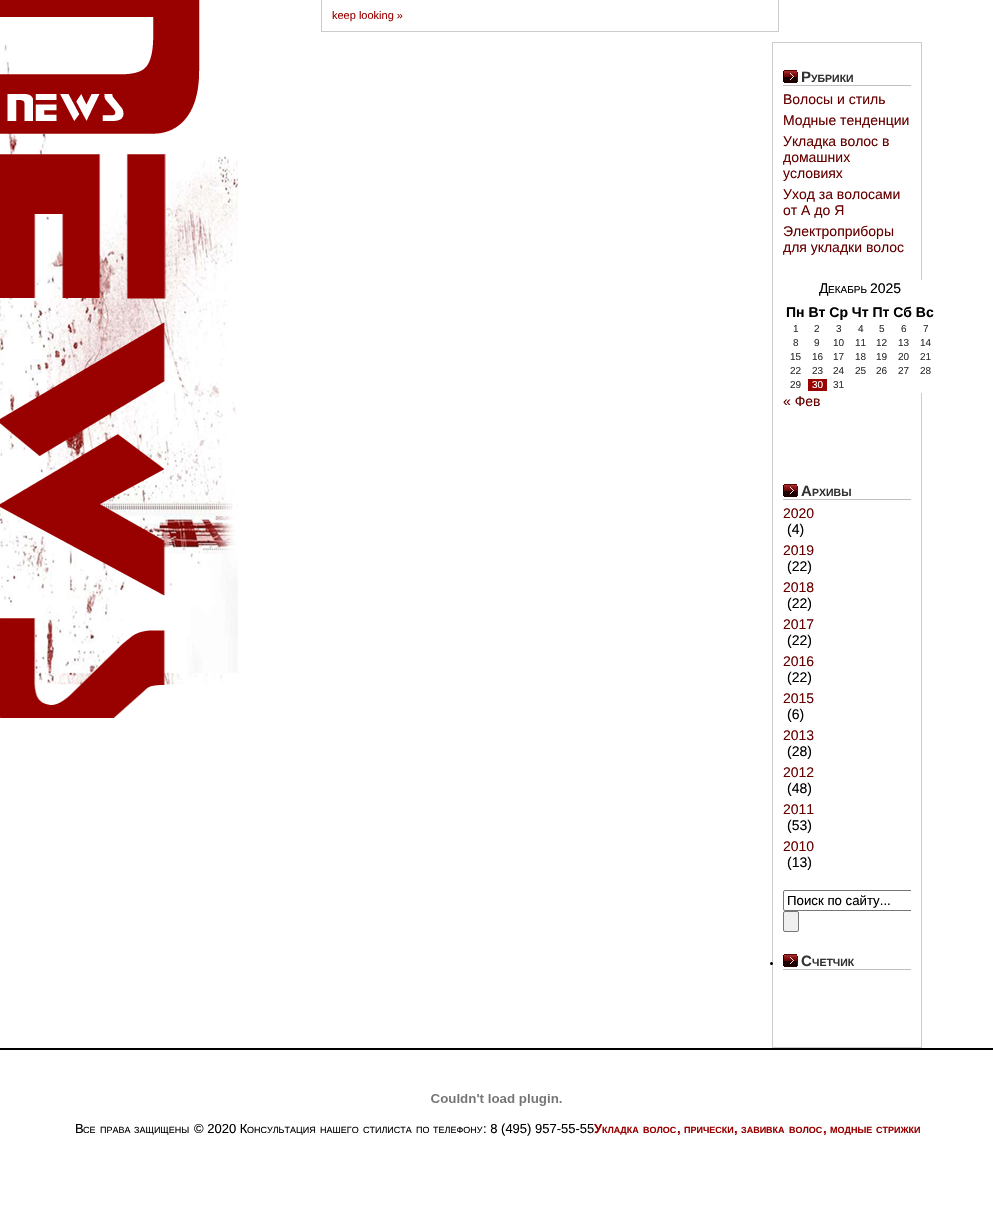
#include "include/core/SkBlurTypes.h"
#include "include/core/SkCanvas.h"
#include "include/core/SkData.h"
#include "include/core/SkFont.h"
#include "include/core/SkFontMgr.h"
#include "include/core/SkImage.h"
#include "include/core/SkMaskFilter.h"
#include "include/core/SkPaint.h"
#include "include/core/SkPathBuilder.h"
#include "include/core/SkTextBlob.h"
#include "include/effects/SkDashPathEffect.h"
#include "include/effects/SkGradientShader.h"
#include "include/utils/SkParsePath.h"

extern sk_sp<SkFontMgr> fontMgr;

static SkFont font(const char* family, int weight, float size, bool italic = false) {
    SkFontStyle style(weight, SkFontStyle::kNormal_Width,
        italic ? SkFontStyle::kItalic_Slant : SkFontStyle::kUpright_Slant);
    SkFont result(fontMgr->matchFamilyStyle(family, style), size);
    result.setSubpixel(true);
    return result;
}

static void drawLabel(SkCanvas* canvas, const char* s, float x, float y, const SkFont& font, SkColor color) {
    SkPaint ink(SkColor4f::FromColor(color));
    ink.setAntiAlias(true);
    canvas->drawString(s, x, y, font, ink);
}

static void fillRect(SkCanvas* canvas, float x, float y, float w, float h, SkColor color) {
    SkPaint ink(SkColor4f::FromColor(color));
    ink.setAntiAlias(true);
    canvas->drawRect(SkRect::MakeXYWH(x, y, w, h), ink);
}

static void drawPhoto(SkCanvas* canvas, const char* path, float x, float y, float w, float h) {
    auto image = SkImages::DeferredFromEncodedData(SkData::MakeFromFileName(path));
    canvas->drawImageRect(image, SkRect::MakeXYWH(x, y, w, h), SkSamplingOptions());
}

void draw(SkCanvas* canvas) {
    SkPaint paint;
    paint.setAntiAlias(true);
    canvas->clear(0xFFFFFFFF);
    drawPhoto(canvas, "assets/img1.png", 0, 0, 238, 718);
    paint.setStroke(true);
    paint.setStrokeWidth(1);
    paint.setColor(0xFFCCCCCC);
    canvas->drawRect(SkRect::MakeXYWH(321.5f, -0.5f, 457, 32), paint);
    SkFont font1 = font("Liberation Sans", 400, 11);
    drawLabel(canvas, "keep looking »", 332, 19, font1, 0xFF990000);
    canvas->drawRect(SkRect::MakeXYWH(772.5f, 42.5f, 149, 1005), paint);
    drawPhoto(canvas, "assets/img2.png", 783, 70, 15, 13);
    fillRect(canvas, 783, 85, 128, 1, 0xFFC0C0C0);
    SkFont font2 = font("Liberation Sans", 700, 15);
    drawLabel(canvas, "Р", 801, 82, font2, 0xFF333333);
    SkFont font3 = font("Liberation Sans", 700, 10.5f);
    drawLabel(canvas, "УБРИКИ", 811, 82, font3, 0xFF333333);
    SkFont font4 = font("Liberation Sans", 400, 14);
    drawLabel(canvas, "Волосы и стиль", 783, 104, font4, 0xFF660000);
    drawLabel(canvas, "Модные тенденции", 783, 125, font4, 0xFF660000);
    drawLabel(canvas, "Укладка волос в", 783, 146, font4, 0xFF660000);
    drawLabel(canvas, "домашних", 783, 162, font4, 0xFF660000);
    drawLabel(canvas, "условиях", 783, 178, font4, 0xFF660000);
    drawLabel(canvas, "Уход за волосами", 783, 199, font4, 0xFF660000);
    drawLabel(canvas, "от А до Я", 783, 215, font4, 0xFF660000);
    drawLabel(canvas, "Электроприборы", 783, 236, font4, 0xFF660000);
    drawLabel(canvas, "для укладки волос", 783, 252, font4, 0xFF660000);
    fillRect(canvas, 921, 280, 1, 113, 0xFFFFFFFF);
    drawLabel(canvas, "Д", 819, 293, font4, 0xFF000000);
    SkFont font5 = font("Liberation Sans", 400, 10);
    drawLabel(canvas, "ЕКАБРЬ", 828, 293, font5, 0xFF000000);
    drawLabel(canvas, "2025", 870, 293, font4, 0xFF000000);
    SkFont font6 = font("Liberation Sans", 700, 14);
    drawLabel(canvas, "Пн Вт Ср Чт Пт Сб Вс", 786, 317, font6, 0xFF000000);
    drawLabel(canvas, "1", 793, 332, font5, 0xFF333333);
    drawLabel(canvas, "2", 814, 332, font5, 0xFF333333);
    drawLabel(canvas, "3", 836, 332, font5, 0xFF333333);
    drawLabel(canvas, "4", 858, 332, font5, 0xFF333333);
    drawLabel(canvas, "5", 879, 332, font5, 0xFF333333);
    drawLabel(canvas, "6", 901, 332, font5, 0xFF333333);
    drawLabel(canvas, "7", 923, 332, font5, 0xFF333333);
    drawLabel(canvas, "8", 793, 346, font5, 0xFF333333);
    drawLabel(canvas, "9", 814, 346, font5, 0xFF333333);
    drawLabel(canvas, "10", 833, 346, font5, 0xFF333333);
    drawLabel(canvas, "11", 855, 346, font5, 0xFF333333);
    drawLabel(canvas, "12", 876, 346, font5, 0xFF333333);
    drawLabel(canvas, "13", 898, 346, font5, 0xFF333333);
    drawLabel(canvas, "14", 920, 346, font5, 0xFF333333);
    drawLabel(canvas, "15", 790, 360, font5, 0xFF333333);
    drawLabel(canvas, "16", 812, 360, font5, 0xFF333333);
    drawLabel(canvas, "17", 833, 360, font5, 0xFF333333);
    drawLabel(canvas, "18", 855, 360, font5, 0xFF333333);
    drawLabel(canvas, "19", 876, 360, font5, 0xFF333333);
    drawLabel(canvas, "20", 898, 360, font5, 0xFF333333);
    drawLabel(canvas, "21", 920, 360, font5, 0xFF333333);
    drawLabel(canvas, "22", 790, 374, font5, 0xFF333333);
    drawLabel(canvas, "23", 812, 374, font5, 0xFF333333);
    drawLabel(canvas, "24", 833, 374, font5, 0xFF333333);
    drawLabel(canvas, "25", 855, 374, font5, 0xFF333333);
    drawLabel(canvas, "26", 876, 374, font5, 0xFF333333);
    drawLabel(canvas, "27", 898, 374, font5, 0xFF333333);
    drawLabel(canvas, "28", 920, 374, font5, 0xFF333333);
    drawLabel(canvas, "29", 790, 388, font5, 0xFF333333);
    fillRect(canvas, 808, 379, 19, 12, 0xFF990000);
    drawLabel(canvas, "30", 812, 388, font5, 0xFFFFFFFF);
    drawLabel(canvas, "31", 833, 388, font5, 0xFF333333);
    drawLabel(canvas, "« Фев", 783, 406, font4, 0xFF660000);
    drawPhoto(canvas, "assets/img2.png", 783, 484, 15, 13);
    fillRect(canvas, 783, 499, 128, 1, 0xFFC0C0C0);
    drawLabel(canvas, "А", 801, 496, font2, 0xFF333333);
    drawLabel(canvas, "РХИВЫ", 812, 496, font3, 0xFF333333);
    drawLabel(canvas, "2020", 783, 518, font4, 0xFF660000);
    drawLabel(canvas, "(4)", 787, 534, font4, 0xFF000000);
    drawLabel(canvas, "2019", 783, 555, font4, 0xFF660000);
    drawLabel(canvas, "(22)", 787, 571, font4, 0xFF000000);
    drawLabel(canvas, "2018", 783, 592, font4, 0xFF660000);
    drawLabel(canvas, "(22)", 787, 608, font4, 0xFF000000);
    drawLabel(canvas, "2017", 783, 629, font4, 0xFF660000);
    drawLabel(canvas, "(22)", 787, 645, font4, 0xFF000000);
    drawLabel(canvas, "2016", 783, 666, font4, 0xFF660000);
    drawLabel(canvas, "(22)", 787, 682, font4, 0xFF000000);
    drawLabel(canvas, "2015", 783, 703, font4, 0xFF660000);
    drawLabel(canvas, "(6)", 787, 719, font4, 0xFF000000);
    drawLabel(canvas, "2013", 783, 740, font4, 0xFF660000);
    drawLabel(canvas, "(28)", 787, 756, font4, 0xFF000000);
    drawLabel(canvas, "2012", 783, 777, font4, 0xFF660000);
    drawLabel(canvas, "(48)", 787, 793, font4, 0xFF000000);
    drawLabel(canvas, "2011", 783, 814, font4, 0xFF660000);
    drawLabel(canvas, "(53)", 787, 830, font4, 0xFF000000);
    drawLabel(canvas, "2010", 783, 851, font4, 0xFF660000);
    drawLabel(canvas, "(13)", 787, 867, font4, 0xFF000000);
    canvas->save();
    canvas->clipRect(SkRect::MakeXYWH(783, 890, 128, 42));
    paint.setColor(0xFF767676);
    canvas->drawRoundRect(SkRect::MakeXYWH(783.5f, 890.5f, 184, 20), 1.5f, 1.5f, paint);
    canvas->restore();
    SkFont font7 = font("Liberation Sans", 400, 13.25f);
    drawLabel(canvas, "Поиск по сайту...", 787, 905, font7, 0xFF000000);
    paint.setStroke(false);
    paint.setColor(0xFFEFEFEF);
    canvas->drawRoundRect(SkRect::MakeXYWH(783.5f, 911.5f, 15, 20), 1.5f, 1.5f, paint);
    paint.setStroke(true);
    paint.setColor(0xFF767676);
    canvas->drawRoundRect(SkRect::MakeXYWH(783.5f, 911.5f, 15, 20), 1.5f, 1.5f, paint);
    paint.setStroke(false);
    paint.setColor(0xFF000000);
    canvas->drawCircle(771.5f, 963.5f, 1.5f, paint);
    drawPhoto(canvas, "assets/img2.png", 783, 954, 15, 13);
    fillRect(canvas, 783, 969, 128, 1, 0xFFC0C0C0);
    drawLabel(canvas, "С", 801, 966, font2, 0xFF333333);
    drawLabel(canvas, "ЧЕТЧИК", 812, 966, font3, 0xFF333333);
    fillRect(canvas, 0, 1048, 993, 2, 0xFF000000);
    drawPhoto(canvas, "assets/img3.png", 431, 1094, 131, 12);
    SkFont font8 = font("Liberation Sans", 400, 13);
    drawLabel(canvas, "В", 75, 1133, font8, 0xFF000000);
    SkFont font9 = font("Liberation Sans", 400, 9);
    drawLabel(canvas, "СЕ", 83, 1133, font9, 0xFF000000);
    drawLabel(canvas, "ПРАВА", 100, 1133, font9, 0xFF000000);
    drawLabel(canvas, "ЗАЩИЩЕНЫ", 134, 1133, font9, 0xFF000000);
    drawLabel(canvas, "© 2020 К", 194, 1133, font8, 0xFF000000);
    drawLabel(canvas, "ОНСУЛЬТАЦИЯ", 247, 1133, font9, 0xFF000000);
    drawLabel(canvas, "НАШЕГО", 320, 1133, font9, 0xFF000000);
    drawLabel(canvas, "СТИЛИСТА", 363, 1133, font9, 0xFF000000);
    drawLabel(canvas, "ПО", 416, 1133, font9, 0xFF000000);
    drawLabel(canvas, "ТЕЛЕФОНУ", 433, 1133, font9, 0xFF000000);
    drawLabel(canvas, ": 8 (495) 957-55-55", 483, 1133, font8, 0xFF000000);
    SkFont font10 = font("Liberation Sans", 700, 13);
    drawLabel(canvas, "У", 594, 1133, font10, 0xFF990000);
    SkFont font11 = font("Liberation Sans", 700, 9);
    drawLabel(canvas, "КЛАДКА", 602, 1133, font11, 0xFF990000);
    drawLabel(canvas, "ВОЛОС", 643, 1133, font11, 0xFF990000);
    drawLabel(canvas, ",", 677, 1133, font10, 0xFF990000);
    drawLabel(canvas, "ПРИЧЕСКИ", 684, 1133, font11, 0xFF990000);
    drawLabel(canvas, ",", 734, 1133, font10, 0xFF990000);
    drawLabel(canvas, "ЗАВИВКА", 741, 1133, font11, 0xFF990000);
    drawLabel(canvas, "ВОЛОС", 789, 1133, font11, 0xFF990000);
    drawLabel(canvas, ",", 823, 1133, font10, 0xFF990000);
    drawLabel(canvas, "МОДНЫЕ", 830, 1133, font11, 0xFF990000);
    drawLabel(canvas, "СТРИЖКИ", 876, 1133, font11, 0xFF990000);
}
